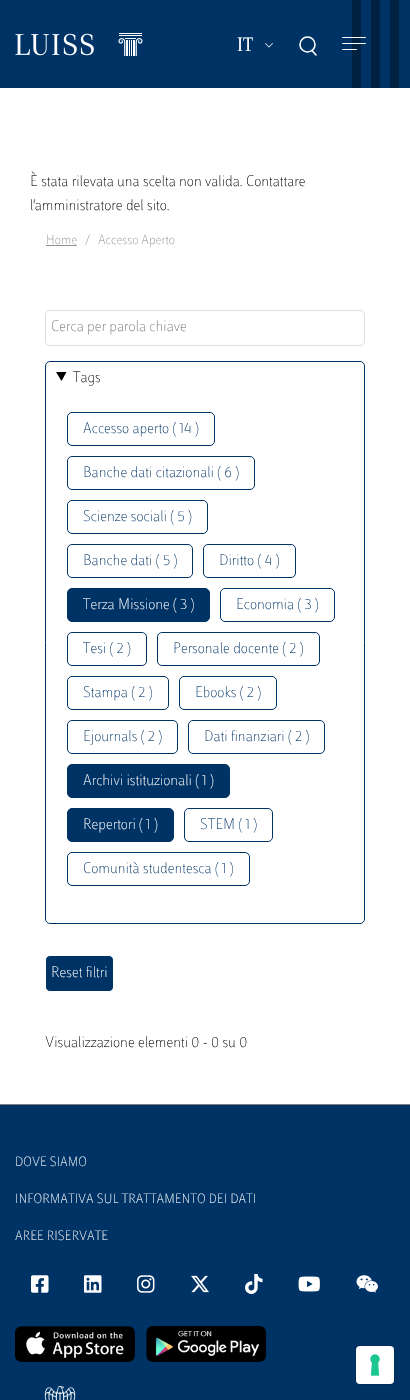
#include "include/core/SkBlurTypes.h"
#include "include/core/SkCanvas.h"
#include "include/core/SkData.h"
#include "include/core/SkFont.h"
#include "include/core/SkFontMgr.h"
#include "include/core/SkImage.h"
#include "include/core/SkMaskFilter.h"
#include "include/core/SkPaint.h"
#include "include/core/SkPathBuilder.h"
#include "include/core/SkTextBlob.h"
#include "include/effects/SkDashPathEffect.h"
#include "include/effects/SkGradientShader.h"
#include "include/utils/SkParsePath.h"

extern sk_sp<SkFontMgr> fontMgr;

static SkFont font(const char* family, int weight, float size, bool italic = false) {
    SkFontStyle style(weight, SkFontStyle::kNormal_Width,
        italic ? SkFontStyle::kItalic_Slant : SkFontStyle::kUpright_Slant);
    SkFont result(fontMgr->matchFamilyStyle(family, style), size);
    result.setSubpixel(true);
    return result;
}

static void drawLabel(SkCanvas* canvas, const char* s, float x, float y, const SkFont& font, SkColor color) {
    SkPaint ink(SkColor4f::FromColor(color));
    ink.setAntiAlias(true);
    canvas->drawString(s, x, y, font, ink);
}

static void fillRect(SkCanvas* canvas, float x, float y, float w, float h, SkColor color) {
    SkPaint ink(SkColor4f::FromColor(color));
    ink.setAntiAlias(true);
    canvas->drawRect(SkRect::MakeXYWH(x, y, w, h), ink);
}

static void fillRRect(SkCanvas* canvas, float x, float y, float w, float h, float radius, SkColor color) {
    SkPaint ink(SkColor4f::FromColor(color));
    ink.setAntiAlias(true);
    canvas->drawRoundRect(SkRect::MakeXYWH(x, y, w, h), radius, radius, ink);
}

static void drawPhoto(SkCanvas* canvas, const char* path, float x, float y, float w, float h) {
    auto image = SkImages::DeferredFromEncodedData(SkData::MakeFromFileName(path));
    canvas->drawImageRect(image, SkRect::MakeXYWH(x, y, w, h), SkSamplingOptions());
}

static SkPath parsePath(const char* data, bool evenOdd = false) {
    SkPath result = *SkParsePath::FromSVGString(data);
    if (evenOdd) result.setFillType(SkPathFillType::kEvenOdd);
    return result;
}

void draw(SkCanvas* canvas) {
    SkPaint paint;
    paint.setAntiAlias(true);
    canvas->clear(0xFFFFFFFF);
    fillRect(canvas, 0, 0, 410, 88, 0xFF003365);
    drawPhoto(canvas, "assets/img1.png", 15, 33, 128, 23);
    canvas->save();
    canvas->clipRect(SkRect::MakeXYWH(237, 31, 16, 30));
    SkFont font1 = font("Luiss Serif", 400, 20);
    drawLabel(canvas, "IT", 237, 51, font1, 0xFFFFFFFF);
    canvas->restore();
    drawPhoto(canvas, "assets/img2.png", 265, 43, 8, 5);
    paint.setStroke(true);
    paint.setStrokeWidth(1.6f);
    paint.setColor(0xFFFFFFFF);
    canvas->drawCircle(307.5f, 44.5f, 7.5f, paint);
    paint.setStrokeCap(SkPaint::kRound_Cap);
    paint.setStrokeJoin(SkPaint::kRound_Join);
    canvas->drawPath(parsePath("M316 55L312 50.5"), paint);
    fillRect(canvas, 352, 0, 9, 88, 0xFF002240);
    fillRRect(canvas, 342, 37, 24, 1, 0.5f, 0xFFFFFFFF);
    fillRRect(canvas, 342, 43, 24, 1, 0.5f, 0xFFFFFFFF);
    fillRRect(canvas, 342, 49, 15, 1, 0.5f, 0xFFFFFFFF);
    fillRect(canvas, 371, 0, 9, 88, 0xFF002240);
    fillRect(canvas, 390, 0, 9, 88, 0xFF002240);
    SkFont font2 = font("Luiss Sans", 100, 16);
    drawLabel(canvas, "È stata rilevata una scelta non valida. Contattare", 30, 186, font2, 0xFF010101);
    drawLabel(canvas, "l'amministratore del sito.", 30, 210, font2, 0xFF010101);
    SkFont font3 = font("Luiss Sans", 100, 14);
    drawLabel(canvas, "Home", 46, 244, font3, 0xFF909090);
    fillRect(canvas, 46, 245, 31, 1, 0xFF909090);
    drawLabel(canvas, "/", 85, 244, font3, 0xFF6C757D);
    drawLabel(canvas, "Accesso Aperto", 98, 244, font3, 0xFF909090);
    paint.setStrokeWidth(1);
    paint.setStrokeCap(SkPaint::kButt_Cap);
    paint.setStrokeJoin(SkPaint::kMiter_Join);
    paint.setColor(0xFFDDDDDD);
    canvas->drawRoundRect(SkRect::MakeXYWH(45.5f, 310.5f, 319, 35), 4.5f, 4.5f, paint);
    drawLabel(canvas, "Cerca per parola chiave", 51, 331, font2, 0xFF757575);
    paint.setColor(0xFF003365);
    canvas->drawRoundRect(SkRect::MakeXYWH(45.5f, 361.5f, 319, 562), 4.5f, 4.5f, paint);
    paint.setStroke(false);
    paint.setColor(0xFF010101);
    canvas->drawPath(parsePath("M56 372H66.5L61.5 381Z"), paint);
    drawLabel(canvas, "Tags", 73, 382, font2, 0xFF010101);
    paint.setStroke(true);
    paint.setColor(0xFF003365);
    canvas->drawRoundRect(SkRect::MakeXYWH(67.5f, 412.5f, 147, 33), 4.5f, 4.5f, paint);
    drawLabel(canvas, "Accesso aperto ( 14 )", 83, 433, font2, 0xFF003365);
    canvas->drawRoundRect(SkRect::MakeXYWH(67.5f, 456.5f, 187, 33), 4.5f, 4.5f, paint);
    drawLabel(canvas, "Banche dati citazionali ( 6 )", 83, 477, font2, 0xFF003365);
    canvas->drawRoundRect(SkRect::MakeXYWH(67.5f, 500.5f, 140, 33), 4.5f, 4.5f, paint);
    drawLabel(canvas, "Scienze sociali ( 5 )", 83, 521, font2, 0xFF003365);
    canvas->drawRoundRect(SkRect::MakeXYWH(67.5f, 544.5f, 125, 33), 4.5f, 4.5f, paint);
    drawLabel(canvas, "Banche dati ( 5 )", 83, 565, font2, 0xFF003365);
    canvas->drawRoundRect(SkRect::MakeXYWH(203.5f, 544.5f, 92, 33), 4.5f, 4.5f, paint);
    drawLabel(canvas, "Diritto ( 4 )", 219, 565, font2, 0xFF003365);
    paint.setStroke(false);
    canvas->drawRoundRect(SkRect::MakeXYWH(67.5f, 588.5f, 142, 33), 4.5f, 4.5f, paint);
    paint.setStroke(true);
    canvas->drawRoundRect(SkRect::MakeXYWH(67.5f, 588.5f, 142, 33), 4.5f, 4.5f, paint);
    drawLabel(canvas, "Terza Missione ( 3 )", 83, 609, font2, 0xFFFFFFFF);
    canvas->drawRoundRect(SkRect::MakeXYWH(220.5f, 588.5f, 114, 33), 4.5f, 4.5f, paint);
    drawLabel(canvas, "Economia ( 3 )", 236, 609, font2, 0xFF003365);
    canvas->drawRoundRect(SkRect::MakeXYWH(67.5f, 632.5f, 79, 33), 4.5f, 4.5f, paint);
    drawLabel(canvas, "Tesi ( 2 )", 83, 653, font2, 0xFF003365);
    canvas->drawRoundRect(SkRect::MakeXYWH(157.5f, 632.5f, 162, 33), 4.5f, 4.5f, paint);
    drawLabel(canvas, "Personale docente ( 2 )", 173, 653, font2, 0xFF003365);
    canvas->drawRoundRect(SkRect::MakeXYWH(67.5f, 676.5f, 101, 33), 4.5f, 4.5f, paint);
    drawLabel(canvas, "Stampa ( 2 )", 83, 697, font2, 0xFF003365);
    canvas->drawRoundRect(SkRect::MakeXYWH(179.5f, 676.5f, 97, 33), 4.5f, 4.5f, paint);
    drawLabel(canvas, "Ebooks ( 2 )", 195, 697, font2, 0xFF003365);
    canvas->drawRoundRect(SkRect::MakeXYWH(67.5f, 720.5f, 110, 33), 4.5f, 4.5f, paint);
    drawLabel(canvas, "Ejournals ( 2 )", 83, 741, font2, 0xFF003365);
    canvas->drawRoundRect(SkRect::MakeXYWH(188.5f, 720.5f, 136, 33), 4.5f, 4.5f, paint);
    drawLabel(canvas, "Dati finanziari ( 2 )", 204, 741, font2, 0xFF003365);
    paint.setStroke(false);
    canvas->drawRoundRect(SkRect::MakeXYWH(67.5f, 764.5f, 162, 33), 4.5f, 4.5f, paint);
    paint.setStroke(true);
    canvas->drawRoundRect(SkRect::MakeXYWH(67.5f, 764.5f, 162, 33), 4.5f, 4.5f, paint);
    drawLabel(canvas, "Archivi istituzionali ( 1 )", 83, 785, font2, 0xFFFFFFFF);
    paint.setStroke(false);
    canvas->drawRoundRect(SkRect::MakeXYWH(67.5f, 808.5f, 106, 33), 4.5f, 4.5f, paint);
    paint.setStroke(true);
    canvas->drawRoundRect(SkRect::MakeXYWH(67.5f, 808.5f, 106, 33), 4.5f, 4.5f, paint);
    drawLabel(canvas, "Repertori ( 1 )", 83, 829, font2, 0xFFFFFFFF);
    canvas->drawRoundRect(SkRect::MakeXYWH(184.5f, 808.5f, 88, 33), 4.5f, 4.5f, paint);
    drawLabel(canvas, "STEM ( 1 )", 200, 829, font2, 0xFF003365);
    canvas->drawRoundRect(SkRect::MakeXYWH(67.5f, 852.5f, 182, 33), 4.5f, 4.5f, paint);
    drawLabel(canvas, "Comunità studentesca ( 1 )", 83, 873, font2, 0xFF003365);
    paint.setStroke(false);
    canvas->drawRoundRect(SkRect::MakeXYWH(45.5f, 955.5f, 68, 36), 4.5f, 4.5f, paint);
    paint.setStroke(true);
    paint.setColor(0xFFFFFFFF);
    canvas->drawRoundRect(SkRect::MakeXYWH(45.5f, 955.5f, 68, 36), 4.5f, 4.5f, paint);
    drawLabel(canvas, "Reset filtri", 51, 977, font2, 0xFFFFFFFF);
    drawLabel(canvas, "Visualizzazione elementi 0 - 0 su 0", 45, 1047, font2, 0xFF010101);
    fillRect(canvas, 0, 1105, 410, 295, 0xFF003365);
    fillRect(canvas, 0, 1104, 410, 1, 0xFF808080);
    drawLabel(canvas, "DOVE SIAMO", 15, 1166, font3, 0xFFFFFFFF);
    drawLabel(canvas, "INFORMATIVA SUL TRATTAMENTO DEI DATI", 15, 1203, font3, 0xFFFFFFFF);
    drawLabel(canvas, "AREE RISERVATE", 15, 1240, font3, 0xFFFFFFFF);
    drawPhoto(canvas, "assets/img3.png", 31, 1275, 18, 18);
    drawPhoto(canvas, "assets/img4.png", 84, 1275, 18, 18);
    drawPhoto(canvas, "assets/img5.png", 137, 1275, 18, 18);
    drawPhoto(canvas, "assets/img6.png", 191, 1275, 18, 18);
    drawPhoto(canvas, "assets/img7.png", 245, 1274, 18, 20);
    drawPhoto(canvas, "assets/img8.png", 298, 1276, 22, 16);
    drawPhoto(canvas, "assets/img9.png", 356, 1275, 22, 18);
    drawPhoto(canvas, "assets/img10.png", 15, 1326, 120, 36);
    drawPhoto(canvas, "assets/img11.png", 146, 1326, 120, 36);
    drawPhoto(canvas, "assets/img12.png", 44, 1386, 32, 14);
    paint.setColor(0xFF002B56);
    canvas->drawRoundRect(SkRect::MakeXYWH(355.5f, 1345.5f, 39, 39), 4.5f, 4.5f, paint);
    fillRRect(canvas, 356, 1346, 38, 38, 4, 0xFFFFFFFF);
    drawPhoto(canvas, "assets/img13.png", 370, 1354, 10, 22);
}
